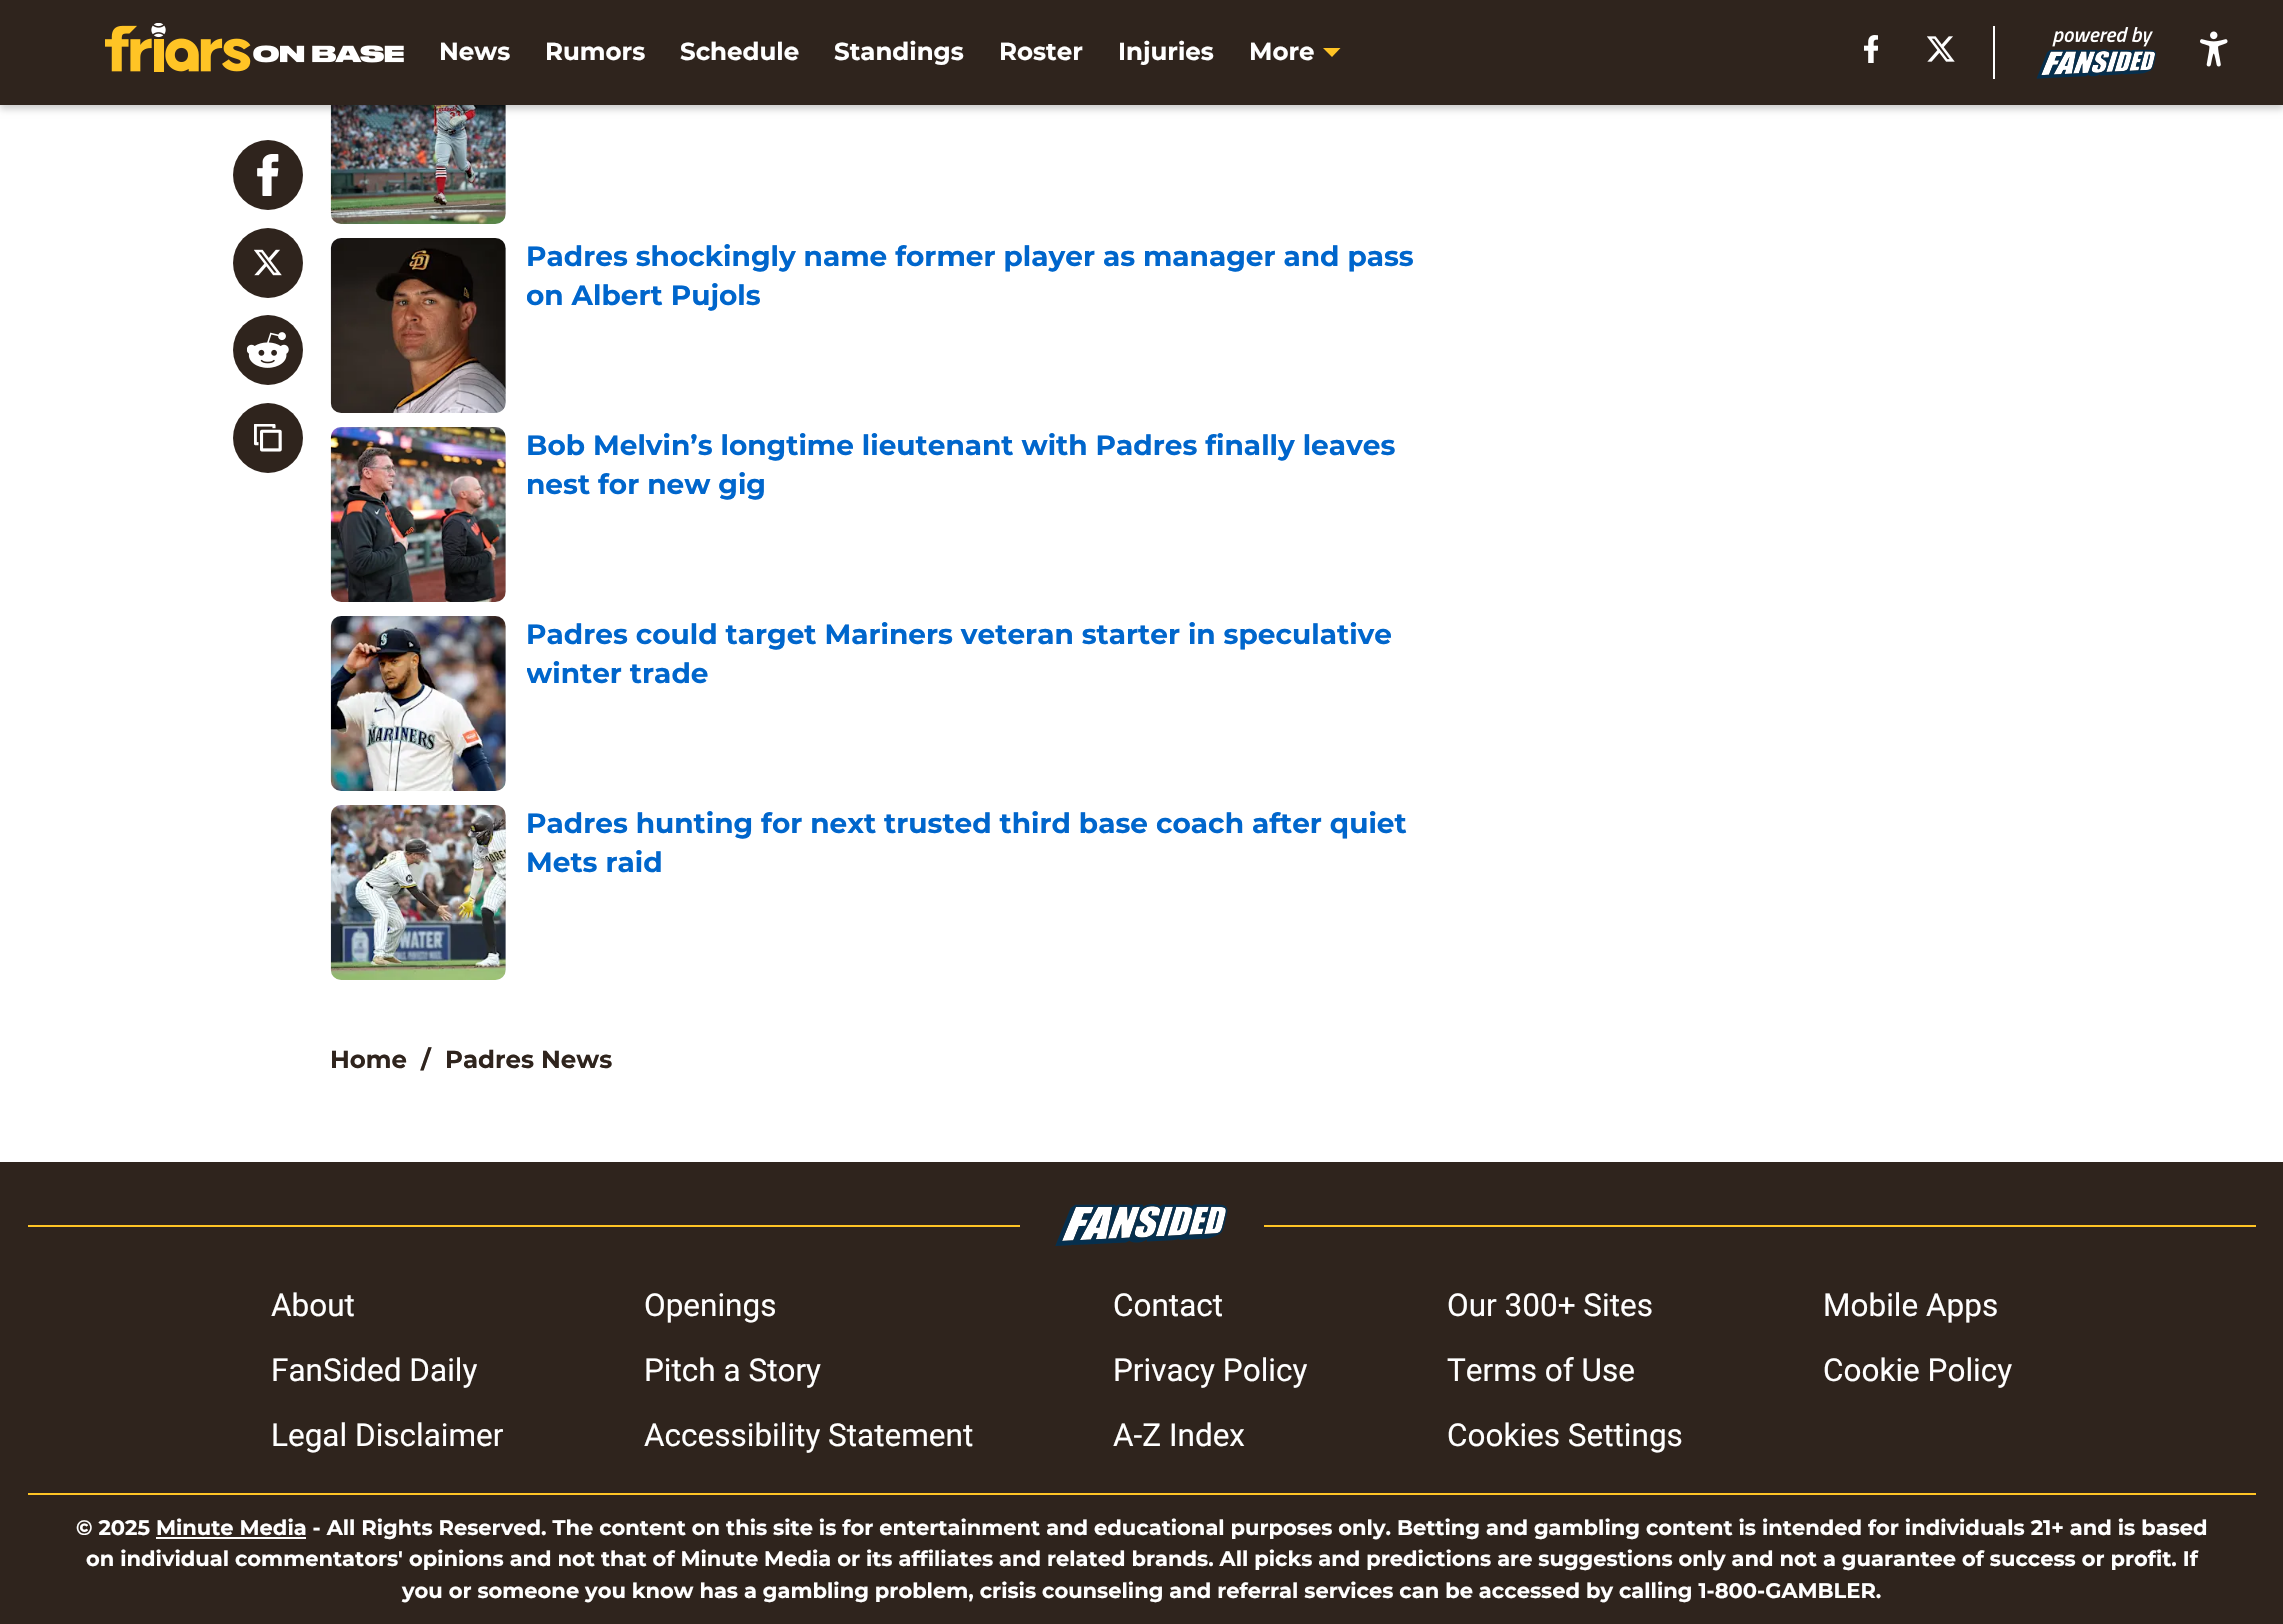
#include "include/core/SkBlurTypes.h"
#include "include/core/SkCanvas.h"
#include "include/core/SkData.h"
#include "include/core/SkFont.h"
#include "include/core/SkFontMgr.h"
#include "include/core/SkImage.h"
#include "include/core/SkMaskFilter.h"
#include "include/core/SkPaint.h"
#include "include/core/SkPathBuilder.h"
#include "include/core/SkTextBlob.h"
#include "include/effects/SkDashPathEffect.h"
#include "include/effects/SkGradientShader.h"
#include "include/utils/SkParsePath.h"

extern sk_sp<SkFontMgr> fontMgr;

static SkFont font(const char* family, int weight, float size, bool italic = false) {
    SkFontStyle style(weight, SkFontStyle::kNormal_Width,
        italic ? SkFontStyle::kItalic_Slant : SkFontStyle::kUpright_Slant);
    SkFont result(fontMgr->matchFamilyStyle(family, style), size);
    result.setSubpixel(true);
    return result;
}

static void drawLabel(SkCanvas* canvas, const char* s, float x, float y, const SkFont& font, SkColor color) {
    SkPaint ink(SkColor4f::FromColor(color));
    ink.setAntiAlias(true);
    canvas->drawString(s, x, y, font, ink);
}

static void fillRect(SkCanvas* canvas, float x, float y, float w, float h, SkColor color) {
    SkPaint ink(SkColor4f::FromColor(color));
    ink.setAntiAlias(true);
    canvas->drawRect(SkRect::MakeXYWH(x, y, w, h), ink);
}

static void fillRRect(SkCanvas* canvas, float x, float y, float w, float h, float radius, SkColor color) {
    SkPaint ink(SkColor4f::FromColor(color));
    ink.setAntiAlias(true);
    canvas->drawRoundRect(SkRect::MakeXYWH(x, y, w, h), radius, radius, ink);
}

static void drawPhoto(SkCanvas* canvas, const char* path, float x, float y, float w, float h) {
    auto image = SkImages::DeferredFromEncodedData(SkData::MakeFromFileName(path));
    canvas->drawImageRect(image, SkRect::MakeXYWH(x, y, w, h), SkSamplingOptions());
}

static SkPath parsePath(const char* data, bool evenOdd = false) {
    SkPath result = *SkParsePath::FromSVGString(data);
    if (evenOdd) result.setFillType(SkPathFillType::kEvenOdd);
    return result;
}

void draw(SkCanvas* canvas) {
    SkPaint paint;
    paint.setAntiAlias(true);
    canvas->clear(0xFFFFFFFF);
    fillRRect(canvas, 331, 49, 175, 175, 11, 0xFFE5E7EB);
    drawPhoto(canvas, "assets/img10.png", 330, 105, 176, 119);
    paint.setColor(0x33000000);
    paint.setMaskFilter(SkMaskFilter::MakeBlur(kNormal_SkBlurStyle, 3.5f));
    canvas->drawRect(SkRect::MakeXYWH(0, 4, 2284, 105), paint);
    paint.setMaskFilter(nullptr);
    fillRect(canvas, 0, 0, 2283, 105, 0xFF2F241D);
    drawPhoto(canvas, "assets/img1.png", 105, 23, 299, 49);
    SkFont font1 = font("Montserrat", 100, 24.5f);
    drawLabel(canvas, "News", 439, 60, font1, 0xFFFFFFFF);
    drawLabel(canvas, "Rumors", 545, 60, font1, 0xFFFFFFFF);
    drawLabel(canvas, "Schedule", 680, 60, font1, 0xFFFFFFFF);
    drawLabel(canvas, "Standings", 834, 60, font1, 0xFFFFFFFF);
    drawLabel(canvas, "Roster", 999, 60, font1, 0xFFFFFFFF);
    drawLabel(canvas, "Injuries", 1118, 60, font1, 0xFFFFFFFF);
    drawLabel(canvas, "More", 1249, 60, font1, 0xFFFFFFFF);
    paint.setColor(0xFFFFC425);
    canvas->drawPath(parsePath("M1323 48L1332 57L1340.5 48Z", true), paint);
    drawPhoto(canvas, "assets/img2.png", 1864, 35, 14, 28);
    drawPhoto(canvas, "assets/img3.png", 1927, 36, 28, 26);
    fillRect(canvas, 1993, 26, 2, 53, 0xFFFFFFFF);
    drawPhoto(canvas, "assets/img4.png", 2036, 27, 121, 52);
    drawPhoto(canvas, "assets/img5.png", 2200, 31, 28, 36);
    paint.setColor(0xFF2F241D);
    canvas->drawCircle(268, 175, 35, paint);
    drawPhoto(canvas, "assets/img6.png", 257, 154, 22, 42);
    canvas->drawCircle(268, 263, 35, paint);
    drawPhoto(canvas, "assets/img7.png", 254, 249, 28, 27);
    canvas->drawCircle(268, 350, 35, paint);
    drawPhoto(canvas, "assets/img8.png", 247, 332, 42, 36);
    canvas->drawCircle(268, 438, 35, paint);
    drawPhoto(canvas, "assets/img9.png", 254, 424, 28, 28);
    fillRRect(canvas, 331, 238, 175, 175, 11, 0xFFE5E7EB);
    drawPhoto(canvas, "assets/img11.png", 330, 238, 176, 175);
    SkFont font2 = font("Montserrat", 100, 28);
    drawLabel(canvas, "Padres shockingly name former player as manager and pass", 526, 266, font2, 0xFF0066CC);
    canvas->save();
    canvas->clipRect(SkRect::MakeXYWH(527, 238, 906, 79));
    drawLabel(canvas, "on Albert Pujols", 526, 305, font2, 0xFF0066CC);
    canvas->restore();
    fillRRect(canvas, 331, 427, 175, 175, 11, 0xFFE5E7EB);
    drawPhoto(canvas, "assets/img12.png", 330, 427, 176, 175);
    drawLabel(canvas, "Bob Melvin’s longtime lieutenant with Padres finally leaves", 526, 455, font2, 0xFF0066CC);
    drawLabel(canvas, "nest for new gig", 526, 494, font2, 0xFF0066CC);
    fillRRect(canvas, 331, 616, 175, 175, 11, 0xFFE5E7EB);
    drawPhoto(canvas, "assets/img13.png", 330, 616, 176, 175);
    drawLabel(canvas, "Padres could target Mariners veteran starter in speculative", 526, 644, font2, 0xFF0066CC);
    canvas->save();
    canvas->clipRect(SkRect::MakeXYWH(527, 616, 906, 79));
    drawLabel(canvas, "winter trade", 526, 683, font2, 0xFF0066CC);
    canvas->restore();
    fillRRect(canvas, 331, 805, 175, 175, 11, 0xFFE5E7EB);
    drawPhoto(canvas, "assets/img14.png", 330, 805, 176, 175);
    drawLabel(canvas, "Padres hunting for next trusted third base coach after quiet", 526, 833, font2, 0xFF0066CC);
    drawLabel(canvas, "Mets raid", 526, 872, font2, 0xFF0066CC);
    drawLabel(canvas, "Home", 330, 1068, font1, 0xFF2F241D);
    drawLabel(canvas, "/", 421, 1068, font1, 0xFF2F241D);
    drawLabel(canvas, "Padres News", 445, 1068, font1, 0xFF2F241D);
    fillRect(canvas, 0, 1162, 2283, 462, 0xFF2F241D);
    fillRect(canvas, 28, 1225, 992, 2, 0xFFFFC425);
    drawPhoto(canvas, "assets/img15.png", 1055, 1204, 173, 42);
    fillRect(canvas, 1264, 1225, 992, 2, 0xFFFFC425);
    SkFont font3 = font("Roboto", 400, 31.5f);
    drawLabel(canvas, "About", 271, 1316, font3, 0xFFFFFFFF);
    drawLabel(canvas, "Openings", 644, 1316, font3, 0xFFFFFFFF);
    drawLabel(canvas, "Contact", 1113, 1316, font3, 0xFFFFFFFF);
    drawLabel(canvas, "Our 300+ Sites", 1447, 1316, font3, 0xFFFFFFFF);
    drawLabel(canvas, "Mobile Apps", 1823, 1316, font3, 0xFFFFFFFF);
    drawLabel(canvas, "FanSided Daily", 271, 1381, font3, 0xFFFFFFFF);
    drawLabel(canvas, "Pitch a Story", 644, 1381, font3, 0xFFFFFFFF);
    drawLabel(canvas, "Privacy Policy", 1113, 1381, font3, 0xFFFFFFFF);
    drawLabel(canvas, "Terms of Use", 1447, 1381, font3, 0xFFFFFFFF);
    drawLabel(canvas, "Cookie Policy", 1823, 1381, font3, 0xFFFFFFFF);
    drawLabel(canvas, "Legal Disclaimer", 271, 1446, font3, 0xFFFFFFFF);
    drawLabel(canvas, "Accessibility Statement", 644, 1446, font3, 0xFFFFFFFF);
    drawLabel(canvas, "A-Z Index", 1113, 1446, font3, 0xFFFFFFFF);
    drawLabel(canvas, "Cookies Settings", 1447, 1446, font3, 0xFFFFFFFF);
    fillRect(canvas, 28, 1493, 2228, 2, 0xFFFFC425);
    SkFont font4 = font("Montserrat", 100, 21);
    drawLabel(canvas, "© 2025 Minute Media - All Rights Reserved. The content on this site is for entertainment and educational purposes only. Betting and gambling content is intended for individuals 21+ and is based", 76, 1535, font4, 0xFFFFFFFF);
    fillRect(canvas, 156, 1537, 150, 2, 0xFFFFFFFF);
    drawLabel(canvas, "on individual commentators' opinions and not that of Minute Media or its affiliates and related brands. All picks and predictions are suggestions only and not a guarantee of success or profit. If", 86, 1566, font4, 0xFFFFFFFF);
    drawLabel(canvas, "you or someone you know has a gambling problem, crisis counseling and referral services can be accessed by calling 1-800-GAMBLER.", 402, 1598, font4, 0xFFFFFFFF);
}
